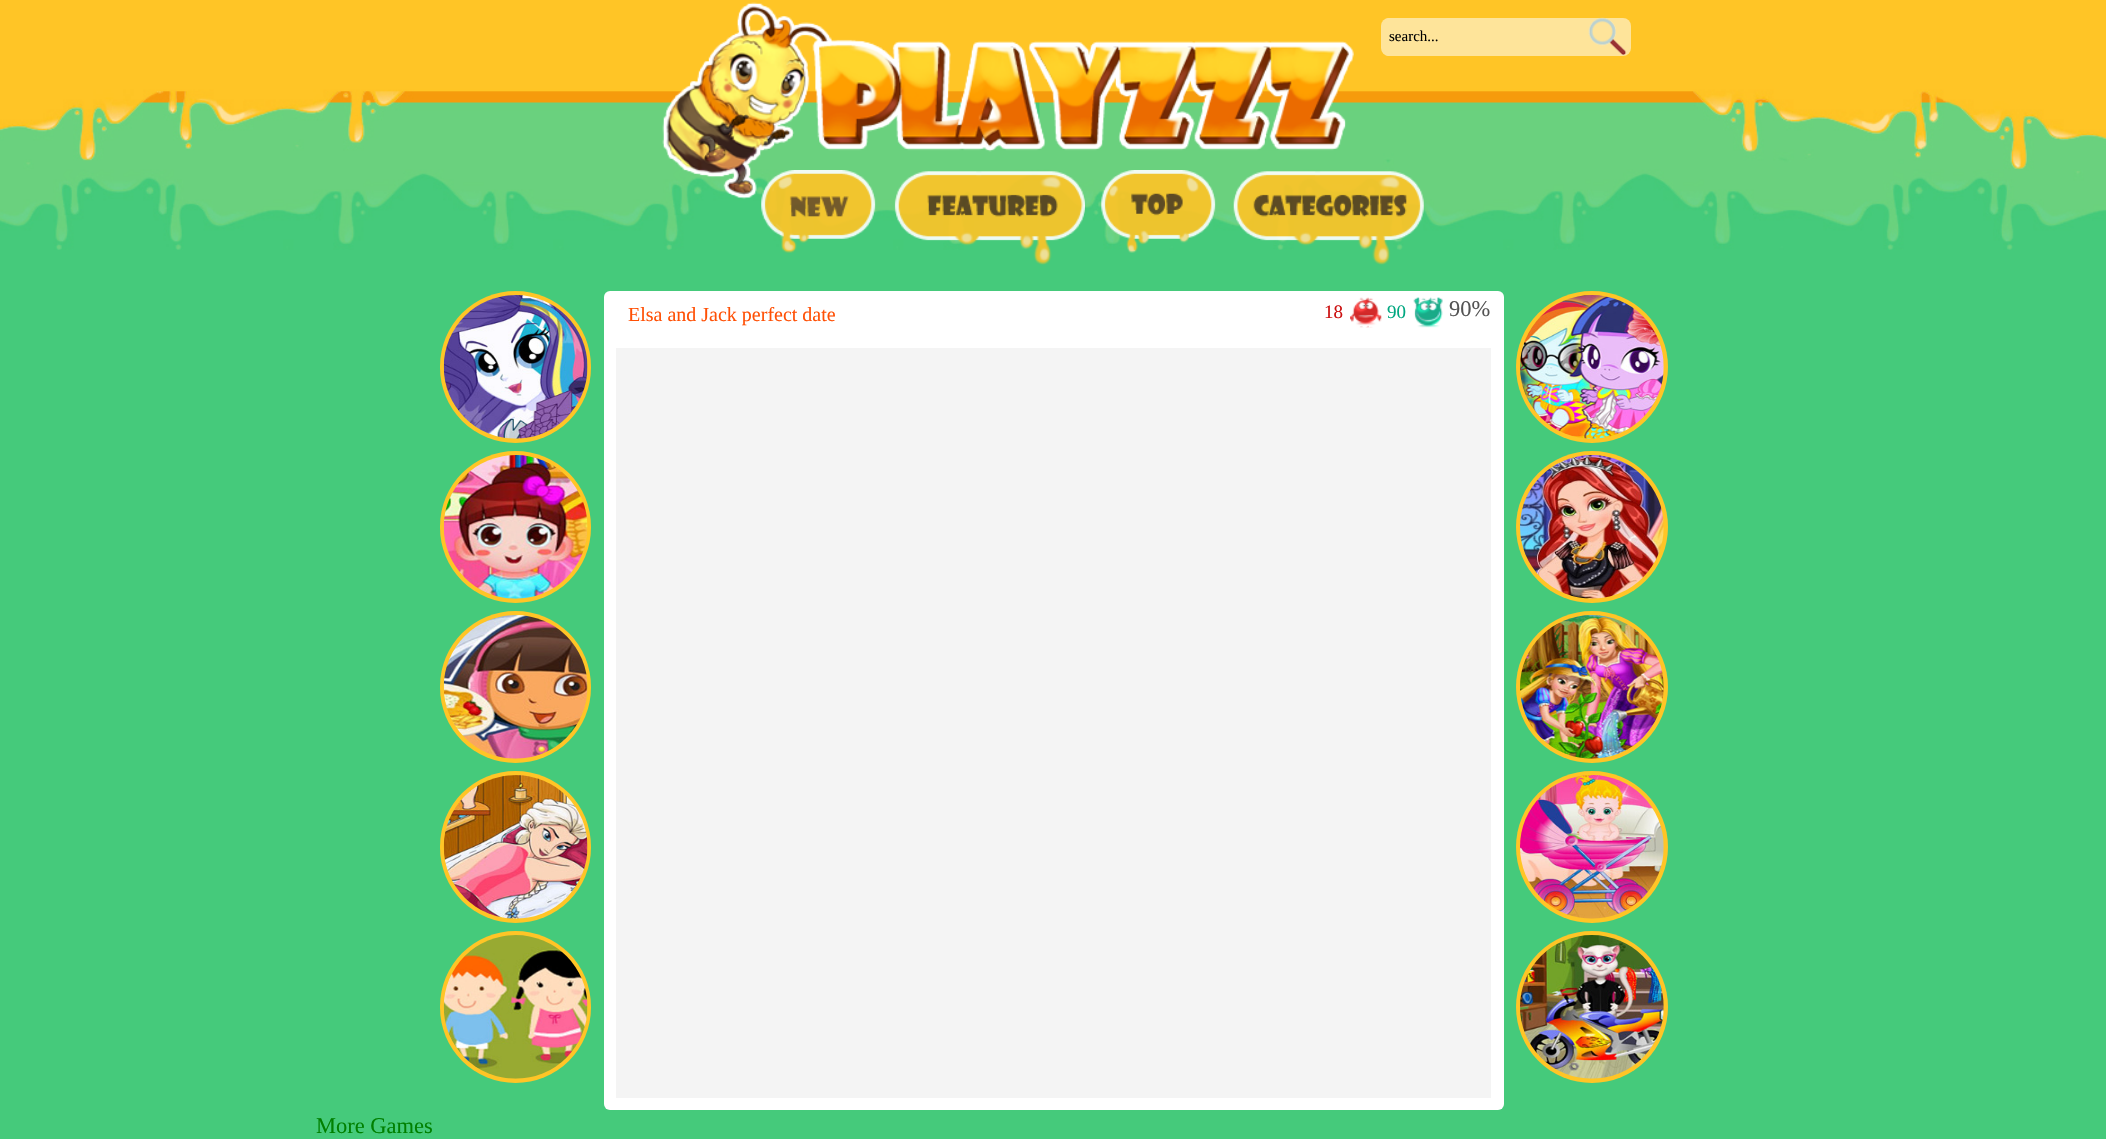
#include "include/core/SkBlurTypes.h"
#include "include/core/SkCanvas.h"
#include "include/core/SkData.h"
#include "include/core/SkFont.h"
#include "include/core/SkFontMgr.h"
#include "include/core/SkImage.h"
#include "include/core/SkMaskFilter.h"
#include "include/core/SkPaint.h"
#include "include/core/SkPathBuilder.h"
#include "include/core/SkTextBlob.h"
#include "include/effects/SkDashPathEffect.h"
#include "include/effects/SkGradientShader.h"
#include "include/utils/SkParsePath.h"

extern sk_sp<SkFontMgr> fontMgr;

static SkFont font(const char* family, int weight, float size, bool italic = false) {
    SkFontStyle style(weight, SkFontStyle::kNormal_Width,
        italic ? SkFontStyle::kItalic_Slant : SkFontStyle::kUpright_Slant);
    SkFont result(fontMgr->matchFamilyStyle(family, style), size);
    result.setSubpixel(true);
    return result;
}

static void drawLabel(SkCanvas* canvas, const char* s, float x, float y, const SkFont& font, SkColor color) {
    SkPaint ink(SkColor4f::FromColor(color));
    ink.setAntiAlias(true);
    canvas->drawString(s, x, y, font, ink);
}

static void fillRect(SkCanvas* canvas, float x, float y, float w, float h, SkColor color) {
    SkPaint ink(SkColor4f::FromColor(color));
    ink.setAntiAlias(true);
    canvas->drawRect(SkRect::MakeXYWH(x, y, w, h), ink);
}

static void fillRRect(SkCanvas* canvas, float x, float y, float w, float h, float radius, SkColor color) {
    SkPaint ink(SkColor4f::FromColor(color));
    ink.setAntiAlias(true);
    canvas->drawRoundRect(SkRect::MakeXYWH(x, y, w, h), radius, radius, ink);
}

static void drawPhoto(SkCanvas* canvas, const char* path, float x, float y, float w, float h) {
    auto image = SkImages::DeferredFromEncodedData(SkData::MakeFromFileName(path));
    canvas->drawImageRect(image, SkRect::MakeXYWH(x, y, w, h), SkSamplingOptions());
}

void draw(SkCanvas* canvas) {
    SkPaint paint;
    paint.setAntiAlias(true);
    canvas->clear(0xFF45CA7B);
    drawPhoto(canvas, "assets/img1.png", 0, 0, 2106, 250);
    drawPhoto(canvas, "assets/img2.png", 662, 2, 692, 197);
    fillRRect(canvas, 1381, 18, 250, 38, 8, 0xFFFEE49A);
    fillRRect(canvas, 1386, 18, 188, 38, 2.5f, 0xFFFEE49A);
    SkFont font1 = font("Liberation Serif", 400, 15);
    drawLabel(canvas, "search...", 1389, 41, font1, 0xFF000000);
    drawPhoto(canvas, "assets/img3.png", 1588, 17, 39, 38);
    drawPhoto(canvas, "assets/img4.png", 761, 170, 115, 83);
    drawPhoto(canvas, "assets/img5.png", 894, 171, 191, 94);
    drawPhoto(canvas, "assets/img6.png", 1101, 170, 115, 83);
    drawPhoto(canvas, "assets/img7.png", 1233, 171, 191, 94);
    fillRRect(canvas, 440, 291, 151, 152, 75.5f, 0xFFFFC526);
    drawPhoto(canvas, "assets/img8.png", 443, 295, 145, 144);
    fillRRect(canvas, 440, 451, 151, 152, 75.5f, 0xFFFFC526);
    drawPhoto(canvas, "assets/img9.png", 443, 455, 145, 144);
    fillRRect(canvas, 440, 611, 151, 152, 75.5f, 0xFFFFC526);
    drawPhoto(canvas, "assets/img10.png", 443, 615, 145, 144);
    fillRRect(canvas, 440, 771, 151, 152, 75.5f, 0xFFFFC526);
    drawPhoto(canvas, "assets/img11.png", 443, 775, 145, 144);
    fillRRect(canvas, 440, 931, 151, 152, 75.5f, 0xFFFFC526);
    drawPhoto(canvas, "assets/img12.png", 443, 935, 145, 144);
    fillRRect(canvas, 604, 291, 900, 819, 6, 0xFFFFFFFF);
    SkFont font2 = font("Liberation Serif", 400, 20);
    drawLabel(canvas, "Elsa and Jack perfect date", 628, 321, font2, 0xFFFF5005);
    SkFont font3 = font("Liberation Serif", 400, 19);
    drawLabel(canvas, "18", 1324, 318, font3, 0xFFCC1010);
    drawPhoto(canvas, "assets/img13.png", 1350, 297, 32, 31);
    drawLabel(canvas, "90", 1387, 318, font3, 0xFF00A780);
    drawPhoto(canvas, "assets/img14.png", 1413, 297, 30, 31);
    SkFont font4 = font("Liberation Serif", 400, 22.5f);
    drawLabel(canvas, "90%", 1449, 316, font4, 0xFF545454);
    fillRect(canvas, 616, 348, 875, 750, 0xFFF4F4F4);
    paint.setColor(0xFFFFC526);
    canvas->drawCircle(1592, 367, 76, paint);
    drawPhoto(canvas, "assets/img15.png", 1520, 295, 144, 144);
    canvas->drawCircle(1592, 527, 76, paint);
    drawPhoto(canvas, "assets/img16.png", 1520, 455, 144, 144);
    canvas->drawCircle(1592, 687, 76, paint);
    drawPhoto(canvas, "assets/img17.png", 1520, 615, 144, 144);
    canvas->drawCircle(1592, 847, 76, paint);
    drawPhoto(canvas, "assets/img18.png", 1520, 775, 144, 144);
    canvas->drawCircle(1592, 1007, 76, paint);
    drawPhoto(canvas, "assets/img19.png", 1520, 935, 144, 144);
    drawLabel(canvas, "More Games", 316, 1133, font4, 0xFF008000);
}
